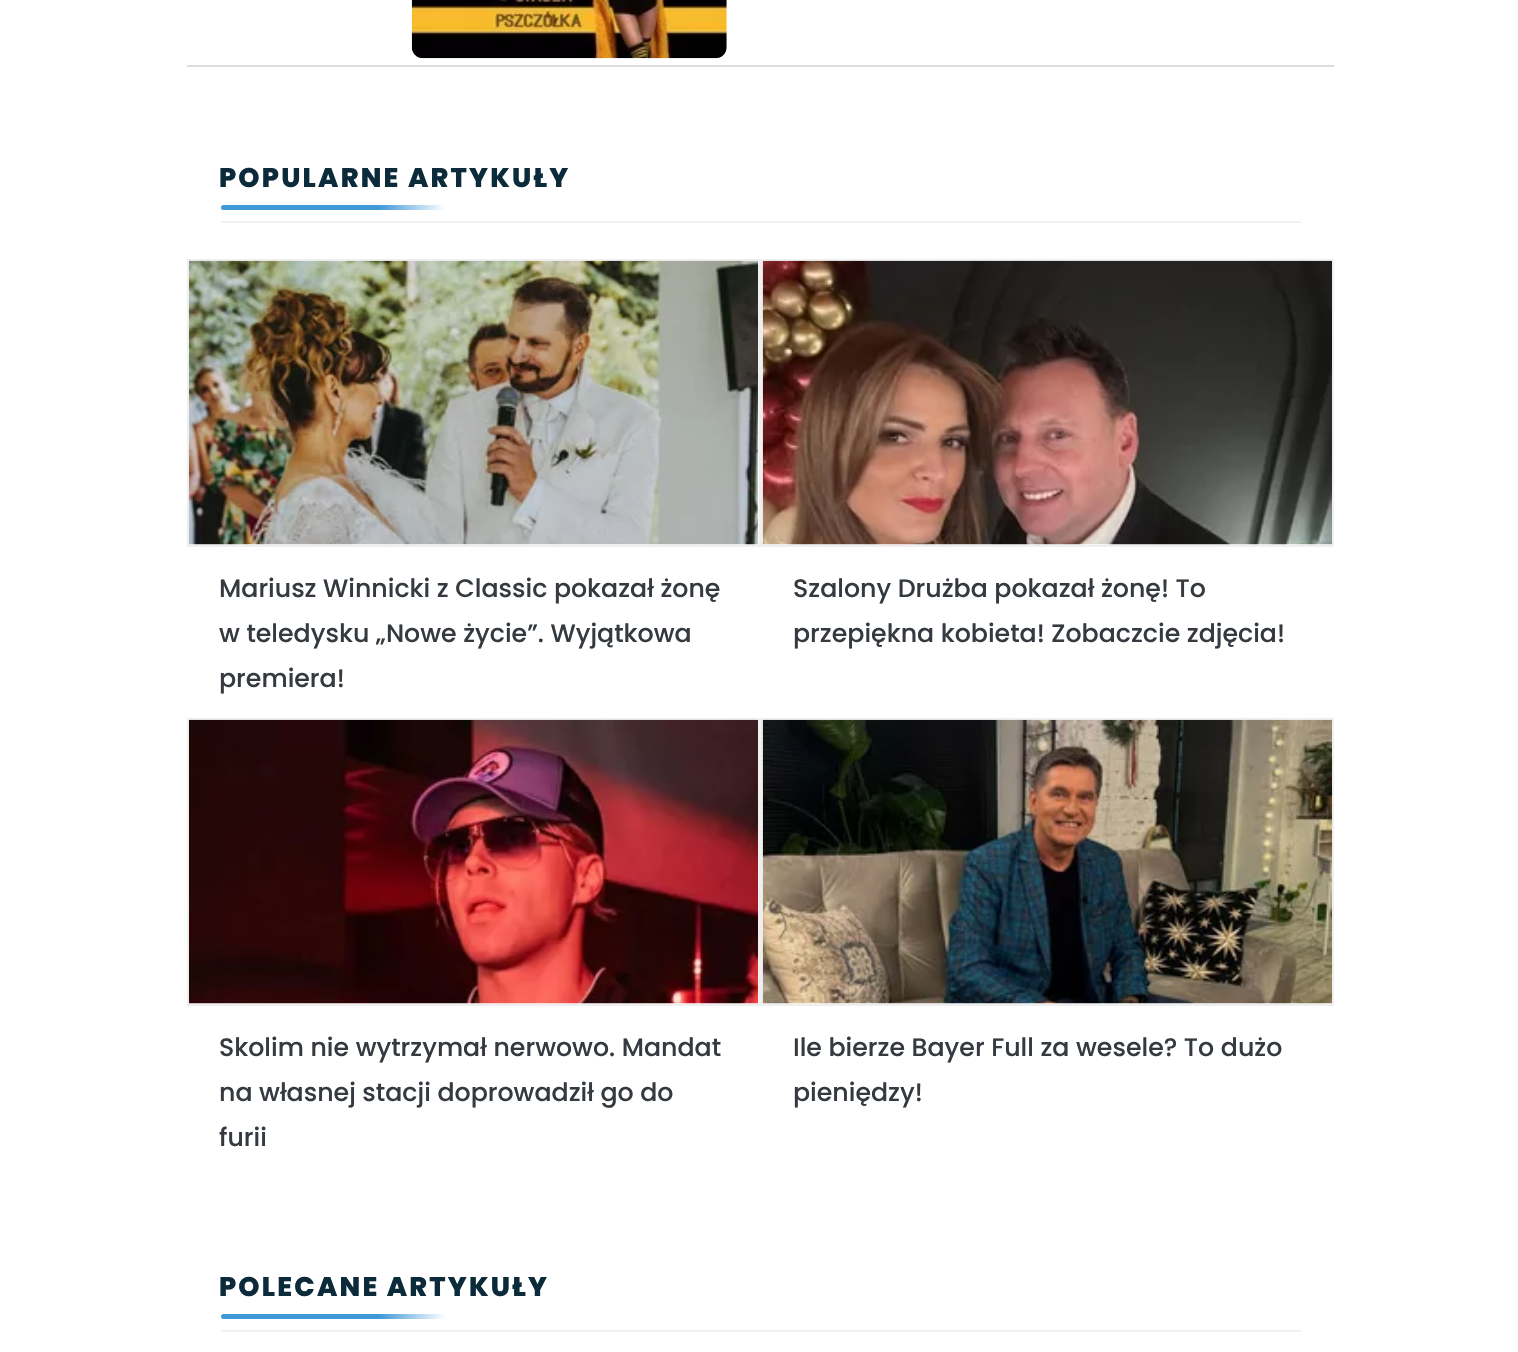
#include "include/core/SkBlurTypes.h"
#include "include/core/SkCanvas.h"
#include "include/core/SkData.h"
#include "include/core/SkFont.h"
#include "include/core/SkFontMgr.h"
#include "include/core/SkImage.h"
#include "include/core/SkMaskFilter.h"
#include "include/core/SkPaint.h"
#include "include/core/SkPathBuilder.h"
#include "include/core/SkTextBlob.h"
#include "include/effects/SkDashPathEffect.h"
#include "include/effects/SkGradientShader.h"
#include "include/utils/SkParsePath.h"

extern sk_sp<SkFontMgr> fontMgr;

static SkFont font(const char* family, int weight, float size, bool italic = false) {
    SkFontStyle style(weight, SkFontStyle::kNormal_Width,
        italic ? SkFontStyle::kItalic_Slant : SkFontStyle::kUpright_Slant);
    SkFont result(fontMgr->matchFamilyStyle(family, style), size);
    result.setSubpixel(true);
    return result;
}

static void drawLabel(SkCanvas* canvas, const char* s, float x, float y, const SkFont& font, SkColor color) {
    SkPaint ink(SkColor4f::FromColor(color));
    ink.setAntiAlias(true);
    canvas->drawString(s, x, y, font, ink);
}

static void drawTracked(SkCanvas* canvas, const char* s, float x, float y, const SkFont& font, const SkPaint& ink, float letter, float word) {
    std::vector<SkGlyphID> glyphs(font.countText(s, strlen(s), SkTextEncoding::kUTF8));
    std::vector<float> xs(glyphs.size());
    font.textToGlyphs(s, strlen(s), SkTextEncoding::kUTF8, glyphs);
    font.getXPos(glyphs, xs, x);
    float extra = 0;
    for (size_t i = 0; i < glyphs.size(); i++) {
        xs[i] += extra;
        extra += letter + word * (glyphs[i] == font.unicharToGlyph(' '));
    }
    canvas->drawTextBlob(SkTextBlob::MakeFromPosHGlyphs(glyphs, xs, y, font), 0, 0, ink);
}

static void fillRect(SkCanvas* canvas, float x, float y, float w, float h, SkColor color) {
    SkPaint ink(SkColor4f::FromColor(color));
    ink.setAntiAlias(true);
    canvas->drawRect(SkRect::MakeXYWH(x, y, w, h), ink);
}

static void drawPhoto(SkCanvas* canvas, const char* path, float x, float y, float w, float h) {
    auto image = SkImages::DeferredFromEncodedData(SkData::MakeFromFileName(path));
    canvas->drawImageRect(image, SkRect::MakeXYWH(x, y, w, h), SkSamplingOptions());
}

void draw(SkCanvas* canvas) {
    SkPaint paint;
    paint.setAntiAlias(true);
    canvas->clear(0xFFFFFFFF);
    fillRect(canvas, 187, 65, 1147, 2, 0xFFDDDDDD);
    drawPhoto(canvas, "assets/img1.png", 411, 0, 316, 59);
    fillRect(canvas, 221, 221, 1080, 2, 0xFFF2F2F2);
    SkFont font1 = font("Poppins", 800, 27);
    paint.setColor(0xFF0B2A3A);
    drawTracked(canvas, "POPULARNE ARTYKUŁY", 219, 187, font1, paint, 2.2f, 0);
    {
        const SkColor colors[] = {0xFF3F98D7, 0xFF3F98D7, 0xFFFFFFFF};
        const float stops[] = {0, 0.7f, 1};
        const SkPoint ends[] = {{221, 207}, {446, 207}};
        paint.setShader(SkGradientShader::MakeLinear(ends, colors, stops, 3, SkTileMode::kClamp));
        paint.setAlpha(255);
    }
    canvas->drawRoundRect(SkRect::MakeXYWH(221, 205, 225, 5), 2.5f, 2.5f, paint);
    paint.setStroke(true);
    paint.setStrokeWidth(2);
    paint.setShader(nullptr);
    paint.setColor(0xFFEFEFEF);
    canvas->drawRect(SkRect::MakeXYWH(188, 260, 572, 286), paint);
    drawPhoto(canvas, "assets/img2.png", 189, 260, 570, 285);
    SkFont font2 = font("Poppins", 500, 25.25f);
    drawLabel(canvas, "Mariusz Winnicki z Classic pokazał żonę", 219, 597, font2, 0xFF343A40);
    drawLabel(canvas, "w teledysku „Nowe życie”. Wyjątkowa", 219, 642, font2, 0xFF343A40);
    drawLabel(canvas, "premiera!", 219, 687, font2, 0xFF343A40);
    canvas->drawRect(SkRect::MakeXYWH(762, 260, 571, 286), paint);
    drawPhoto(canvas, "assets/img3.png", 762, 260, 570, 285);
    drawLabel(canvas, "Szalony Drużba pokazał żonę! To", 793, 597, font2, 0xFF343A40);
    drawLabel(canvas, "przepiękna kobieta! Zobaczcie zdjęcia!", 793, 642, font2, 0xFF343A40);
    canvas->drawRect(SkRect::MakeXYWH(188, 719, 572, 286), paint);
    drawPhoto(canvas, "assets/img4.png", 189, 719, 570, 285);
    drawLabel(canvas, "Skolim nie wytrzymał nerwowo. Mandat", 219, 1056, font2, 0xFF343A40);
    drawLabel(canvas, "na własnej stacji doprowadził go do", 219, 1101, font2, 0xFF343A40);
    drawLabel(canvas, "furii", 219, 1146, font2, 0xFF343A40);
    canvas->drawRect(SkRect::MakeXYWH(762, 719, 571, 286), paint);
    drawPhoto(canvas, "assets/img5.png", 762, 719, 570, 285);
    drawLabel(canvas, "Ile bierze Bayer Full za wesele? To dużo", 793, 1056, font2, 0xFF343A40);
    drawLabel(canvas, "pieniędzy!", 793, 1101, font2, 0xFF343A40);
    fillRect(canvas, 221, 1330, 1080, 2, 0xFFF2F2F2);
    paint.setStroke(false);
    paint.setColor(0xFF0B2A3A);
    drawTracked(canvas, "POLECANE ARTYKUŁY", 219, 1296, font1, paint, 2.2f, 0);
    {
        const SkColor colors[] = {0xFF3F98D7, 0xFF3F98D7, 0xFFFFFFFF};
        const float stops[] = {0, 0.7f, 1};
        const SkPoint ends[] = {{221, 1316}, {446, 1316}};
        paint.setShader(SkGradientShader::MakeLinear(ends, colors, stops, 3, SkTileMode::kClamp));
        paint.setAlpha(255);
    }
    canvas->drawRoundRect(SkRect::MakeXYWH(221, 1314, 225, 5), 2.5f, 2.5f, paint);
}
